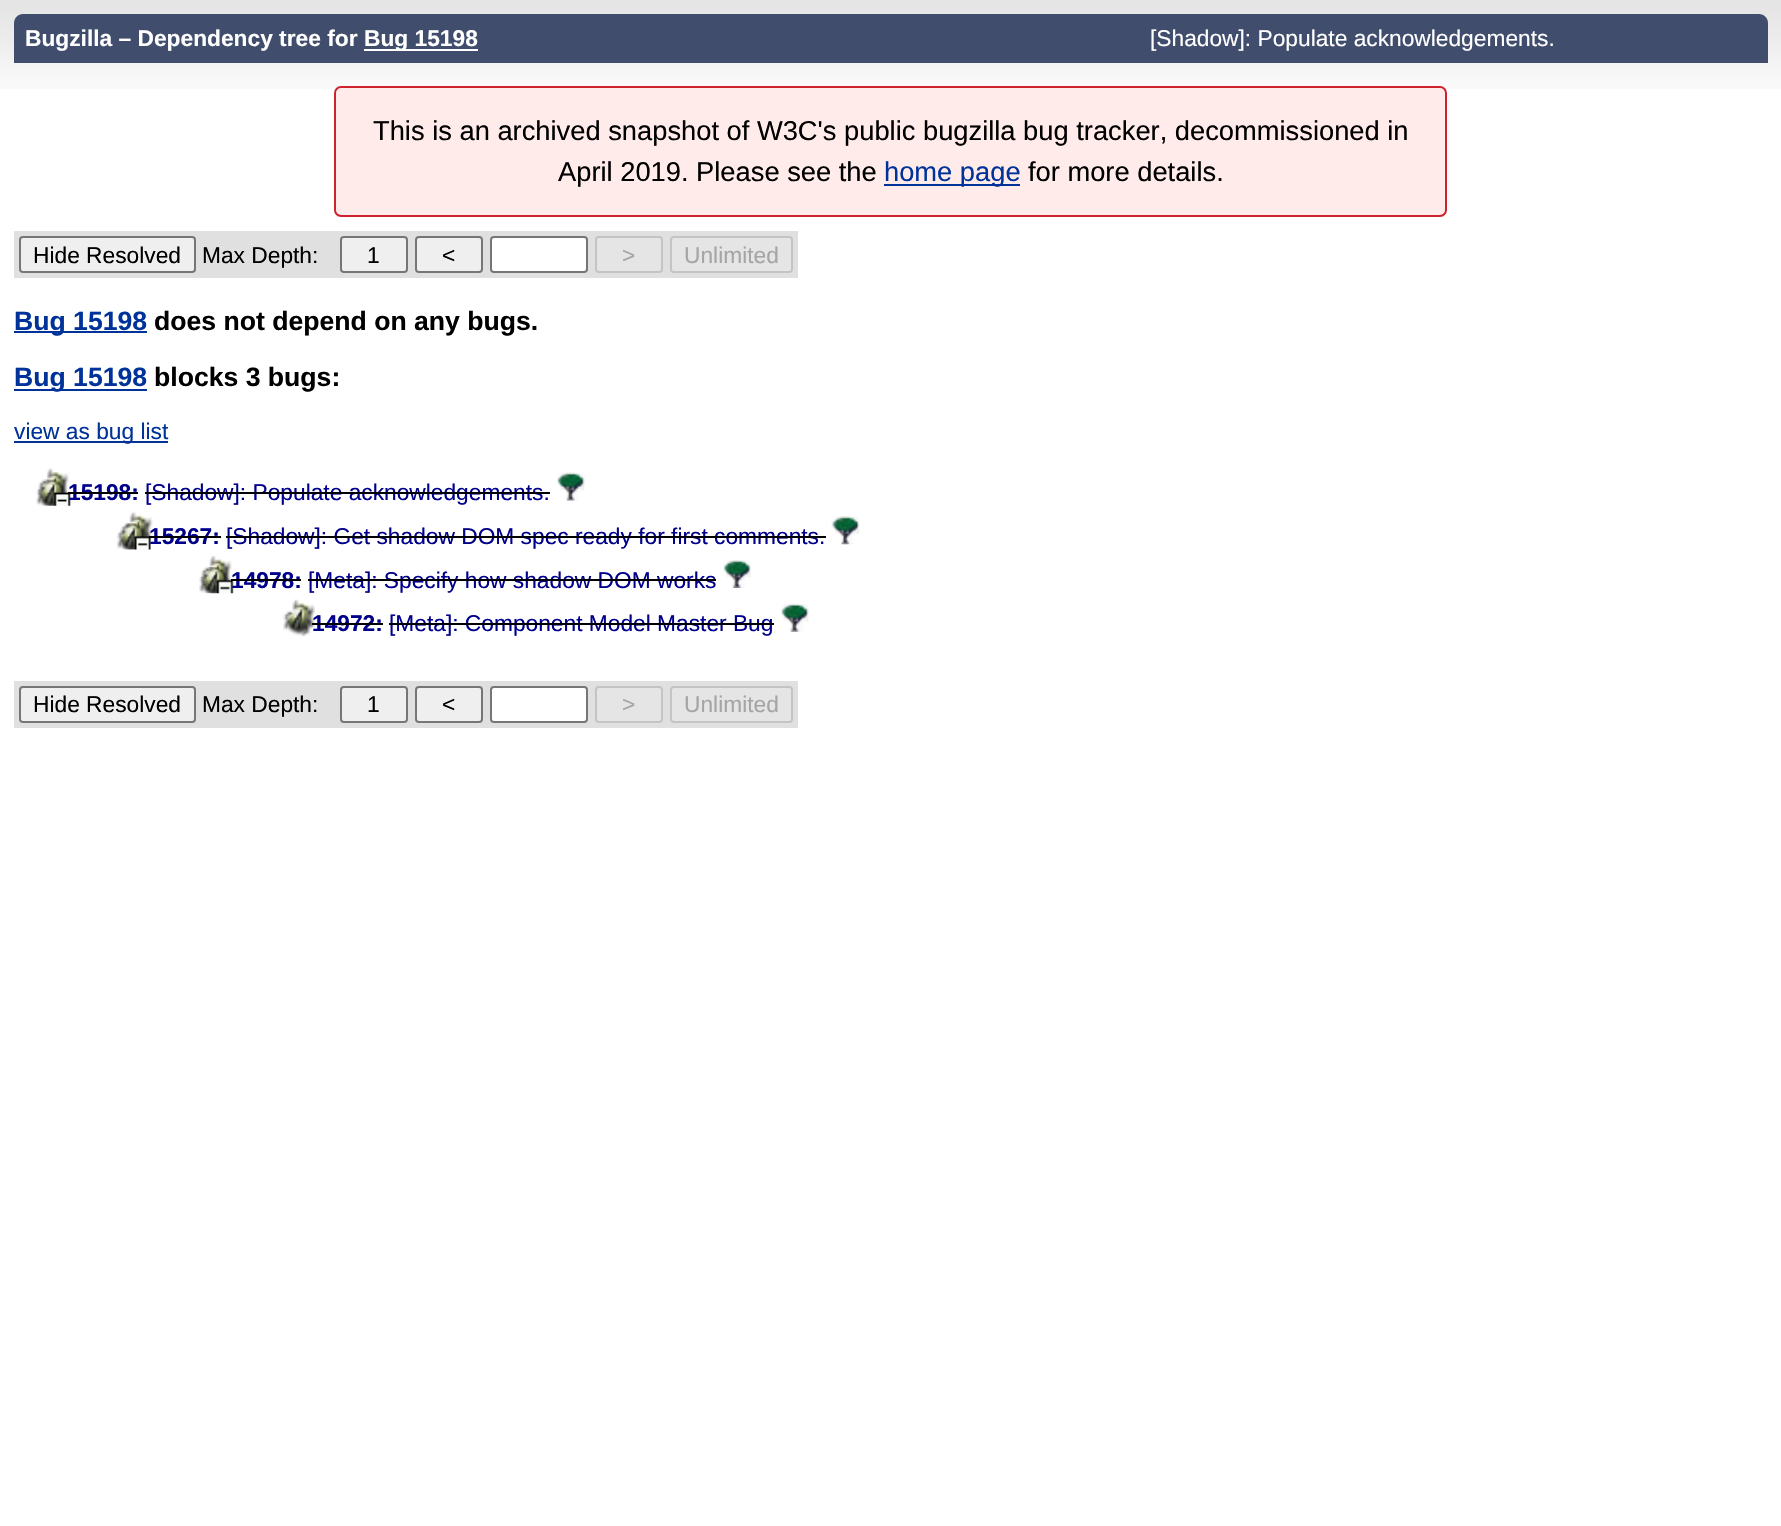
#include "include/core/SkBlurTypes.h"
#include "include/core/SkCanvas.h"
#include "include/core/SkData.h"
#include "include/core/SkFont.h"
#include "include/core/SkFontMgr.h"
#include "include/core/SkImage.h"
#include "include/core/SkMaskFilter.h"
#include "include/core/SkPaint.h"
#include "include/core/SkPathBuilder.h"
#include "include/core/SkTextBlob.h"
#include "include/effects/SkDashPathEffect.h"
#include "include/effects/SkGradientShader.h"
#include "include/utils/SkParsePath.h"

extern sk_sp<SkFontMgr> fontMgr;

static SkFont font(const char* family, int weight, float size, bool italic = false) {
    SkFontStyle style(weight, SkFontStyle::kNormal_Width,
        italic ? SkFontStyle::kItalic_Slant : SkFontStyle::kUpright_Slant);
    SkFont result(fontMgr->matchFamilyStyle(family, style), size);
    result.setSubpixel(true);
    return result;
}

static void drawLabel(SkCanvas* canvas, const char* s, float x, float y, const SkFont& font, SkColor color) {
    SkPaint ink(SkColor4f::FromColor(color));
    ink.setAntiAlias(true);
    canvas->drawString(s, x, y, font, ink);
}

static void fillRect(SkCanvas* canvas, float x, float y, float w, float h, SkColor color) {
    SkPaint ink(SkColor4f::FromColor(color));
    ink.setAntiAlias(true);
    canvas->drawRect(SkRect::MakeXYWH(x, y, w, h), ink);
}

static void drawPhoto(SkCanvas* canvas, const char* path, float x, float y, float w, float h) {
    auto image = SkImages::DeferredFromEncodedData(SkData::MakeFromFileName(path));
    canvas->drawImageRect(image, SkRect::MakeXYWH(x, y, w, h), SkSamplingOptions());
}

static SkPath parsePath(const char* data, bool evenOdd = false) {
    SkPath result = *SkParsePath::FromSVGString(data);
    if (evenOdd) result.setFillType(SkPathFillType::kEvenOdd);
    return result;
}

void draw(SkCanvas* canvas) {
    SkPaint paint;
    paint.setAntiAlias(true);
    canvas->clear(0xFFFFFFFF);
    drawPhoto(canvas, "assets/img1.png", 0, 0, 1781, 89);
    paint.setColor(0xFF404D6C);
    canvas->drawPath(parsePath("M23 14H1759C1764 14 1768 18 1768 23V63H14V23C14 18 18 14 23 14Z"), paint);
    SkFont font1 = font("Liberation Sans", 700, 22.75f);
    drawLabel(canvas, "Bugzilla – Dependency tree for", 25, 46, font1, 0xFFFFFFFF);
    fillRect(canvas, 364, 49, 114, 2, 0xFFFFFFFF);
    drawLabel(canvas, "Bug 15198", 364, 46, font1, 0xFFFFFFFF);
    SkFont font2 = font("Liberation Sans", 400, 22.75f);
    drawLabel(canvas, "[Shadow]: Populate acknowledgements.", 1150, 46, font2, 0xFFFFFFFF);
    paint.setColor(0xFFFFEBE9);
    canvas->drawRoundRect(SkRect::MakeXYWH(335, 87, 1111, 129), 6, 6, paint);
    paint.setStroke(true);
    paint.setStrokeWidth(2);
    paint.setColor(0xFFCF222E);
    canvas->drawRoundRect(SkRect::MakeXYWH(335, 87, 1111, 129), 6, 6, paint);
    SkFont font3 = font("Liberation Sans", 400, 27.3f);
    drawLabel(canvas, "This is an archived snapshot of W3C's public bugzilla bug tracker, decommissioned in", 373, 140, font3, 0xFF000000);
    drawLabel(canvas, "April 2019. Please see the", 558, 181, font3, 0xFF000000);
    fillRect(canvas, 884, 184, 136, 2, 0xFF003399);
    drawLabel(canvas, "home page", 884, 181, font3, 0xFF003399);
    drawLabel(canvas, "for more details.", 1028, 181, font3, 0xFF000000);
    fillRect(canvas, 14, 231, 784, 47, 0xFFE0E0E0);
    paint.setStroke(false);
    paint.setColor(0xFFEFEFEF);
    canvas->drawRoundRect(SkRect::MakeXYWH(20, 237, 175, 35), 3, 3, paint);
    paint.setStroke(true);
    paint.setColor(0xFF767676);
    canvas->drawRoundRect(SkRect::MakeXYWH(20, 237, 175, 35), 3, 3, paint);
    drawLabel(canvas, "Hide Resolved", 33, 263, font2, 0xFF000000);
    drawLabel(canvas, "Max Depth:", 202, 263, font2, 0xFF000000);
    paint.setStroke(false);
    paint.setColor(0xFFEFEFEF);
    canvas->drawRoundRect(SkRect::MakeXYWH(341, 237, 66, 35), 3, 3, paint);
    paint.setStroke(true);
    paint.setColor(0xFF767676);
    canvas->drawRoundRect(SkRect::MakeXYWH(341, 237, 66, 35), 3, 3, paint);
    drawLabel(canvas, "1", 367, 263, font2, 0xFF000000);
    paint.setStroke(false);
    paint.setColor(0xFFEFEFEF);
    canvas->drawRoundRect(SkRect::MakeXYWH(416, 237, 66, 35), 3, 3, paint);
    paint.setStroke(true);
    paint.setColor(0xFF767676);
    canvas->drawRoundRect(SkRect::MakeXYWH(416, 237, 66, 35), 3, 3, paint);
    drawLabel(canvas, "<", 442, 263, font2, 0xFF000000);
    paint.setStroke(false);
    paint.setColor(0xFFFFFFFF);
    canvas->drawRoundRect(SkRect::MakeXYWH(491, 237, 96, 35), 3, 3, paint);
    paint.setStroke(true);
    paint.setColor(0xFF767676);
    canvas->drawRoundRect(SkRect::MakeXYWH(491, 237, 96, 35), 3, 3, paint);
    paint.setStroke(false);
    paint.setColor(0xFFE5E5E5);
    canvas->drawRoundRect(SkRect::MakeXYWH(596, 237, 66, 35), 3, 3, paint);
    paint.setStroke(true);
    paint.setColor(0xFFC4C4C4);
    canvas->drawRoundRect(SkRect::MakeXYWH(596, 237, 66, 35), 3, 3, paint);
    drawLabel(canvas, ">", 622, 263, font2, 0xFFA5A5A5);
    paint.setStroke(false);
    paint.setColor(0xFFE5E5E5);
    canvas->drawRoundRect(SkRect::MakeXYWH(671, 237, 121, 35), 3, 3, paint);
    paint.setStroke(true);
    paint.setColor(0xFFC4C4C4);
    canvas->drawRoundRect(SkRect::MakeXYWH(671, 237, 121, 35), 3, 3, paint);
    drawLabel(canvas, "Unlimited", 684, 263, font2, 0xFFA5A5A5);
    fillRect(canvas, 14, 331, 133, 2, 0xFF003399);
    SkFont font4 = font("Liberation Sans", 700, 26.6f);
    drawLabel(canvas, "Bug 15198", 14, 330, font4, 0xFF003399);
    drawLabel(canvas, "does not depend on any bugs.", 154, 330, font4, 0xFF000000);
    fillRect(canvas, 14, 389, 133, 2, 0xFF003399);
    drawLabel(canvas, "Bug 15198", 14, 386, font4, 0xFF003399);
    drawLabel(canvas, "blocks 3 bugs:", 154, 386, font4, 0xFF000000);
    fillRect(canvas, 14, 441, 154, 2, 0xFF003399);
    drawLabel(canvas, "view as bug list", 14, 439, font2, 0xFF003399);
    drawPhoto(canvas, "assets/img2.png", 38, 468, 31, 38);
    drawPhoto(canvas, "assets/img3.png", 36, 479, 35, 27);
    drawLabel(canvas, "15198:", 68, 500, font1, 0xFF00008B);
    fillRect(canvas, 68, 492, 70, 2, 0xFF000000);
    drawLabel(canvas, "[Shadow]: Populate acknowledgements.", 145, 500, font2, 0xFF00008B);
    fillRect(canvas, 145, 492, 405, 2, 0xFF000000);
    drawPhoto(canvas, "assets/img4.png", 556, 472, 29, 29);
    drawPhoto(canvas, "assets/img5.png", 120, 511, 33, 37);
    drawPhoto(canvas, "assets/img6.png", 116, 523, 35, 27);
    drawLabel(canvas, "15267:", 149, 544, font1, 0xFF00008B);
    fillRect(canvas, 149, 536, 72, 2, 0xFF000000);
    drawLabel(canvas, "[Shadow]: Get shadow DOM spec ready for first comments.", 226, 544, font2, 0xFF00008B);
    fillRect(canvas, 226, 536, 600, 2, 0xFF000000);
    drawPhoto(canvas, "assets/img7.png", 831, 516, 29, 29);
    drawPhoto(canvas, "assets/img8.png", 200, 555, 32, 37);
    drawPhoto(canvas, "assets/img9.png", 199, 567, 35, 27);
    drawLabel(canvas, "14978:", 231, 588, font1, 0xFF00008B);
    fillRect(canvas, 231, 579, 70, 2, 0xFF000000);
    drawLabel(canvas, "[Meta]: Specify how shadow DOM works", 308, 588, font2, 0xFF00008B);
    fillRect(canvas, 308, 579, 408, 2, 0xFF000000);
    drawPhoto(canvas, "assets/img10.png", 723, 560, 28, 28);
    drawPhoto(canvas, "assets/img11.png", 283, 599, 32, 38);
    drawLabel(canvas, "14972:", 312, 631, font1, 0xFF00008B);
    fillRect(canvas, 312, 623, 71, 2, 0xFF000000);
    drawLabel(canvas, "[Meta]: Component Model Master Bug", 389, 631, font2, 0xFF00008B);
    fillRect(canvas, 389, 623, 385, 2, 0xFF000000);
    drawPhoto(canvas, "assets/img12.png", 780, 603, 29, 29);
    fillRect(canvas, 14, 681, 784, 47, 0xFFE0E0E0);
    paint.setStroke(false);
    paint.setColor(0xFFEFEFEF);
    canvas->drawRoundRect(SkRect::MakeXYWH(20, 687, 175, 35), 3, 3, paint);
    paint.setStroke(true);
    paint.setColor(0xFF767676);
    canvas->drawRoundRect(SkRect::MakeXYWH(20, 687, 175, 35), 3, 3, paint);
    drawLabel(canvas, "Hide Resolved", 33, 712, font2, 0xFF000000);
    drawLabel(canvas, "Max Depth:", 202, 712, font2, 0xFF000000);
    paint.setStroke(false);
    paint.setColor(0xFFEFEFEF);
    canvas->drawRoundRect(SkRect::MakeXYWH(341, 687, 66, 35), 3, 3, paint);
    paint.setStroke(true);
    paint.setColor(0xFF767676);
    canvas->drawRoundRect(SkRect::MakeXYWH(341, 687, 66, 35), 3, 3, paint);
    drawLabel(canvas, "1", 367, 712, font2, 0xFF000000);
    paint.setStroke(false);
    paint.setColor(0xFFEFEFEF);
    canvas->drawRoundRect(SkRect::MakeXYWH(416, 687, 66, 35), 3, 3, paint);
    paint.setStroke(true);
    paint.setColor(0xFF767676);
    canvas->drawRoundRect(SkRect::MakeXYWH(416, 687, 66, 35), 3, 3, paint);
    drawLabel(canvas, "<", 442, 712, font2, 0xFF000000);
    paint.setStroke(false);
    paint.setColor(0xFFFFFFFF);
    canvas->drawRoundRect(SkRect::MakeXYWH(491, 687, 96, 35), 3, 3, paint);
    paint.setStroke(true);
    paint.setColor(0xFF767676);
    canvas->drawRoundRect(SkRect::MakeXYWH(491, 687, 96, 35), 3, 3, paint);
    paint.setStroke(false);
    paint.setColor(0xFFE5E5E5);
    canvas->drawRoundRect(SkRect::MakeXYWH(596, 687, 66, 35), 3, 3, paint);
    paint.setStroke(true);
    paint.setColor(0xFFC4C4C4);
    canvas->drawRoundRect(SkRect::MakeXYWH(596, 687, 66, 35), 3, 3, paint);
    drawLabel(canvas, ">", 622, 712, font2, 0xFFA5A5A5);
    paint.setStroke(false);
    paint.setColor(0xFFE5E5E5);
    canvas->drawRoundRect(SkRect::MakeXYWH(671, 687, 121, 35), 3, 3, paint);
    paint.setStroke(true);
    paint.setColor(0xFFC4C4C4);
    canvas->drawRoundRect(SkRect::MakeXYWH(671, 687, 121, 35), 3, 3, paint);
    drawLabel(canvas, "Unlimited", 684, 712, font2, 0xFFA5A5A5);
}
